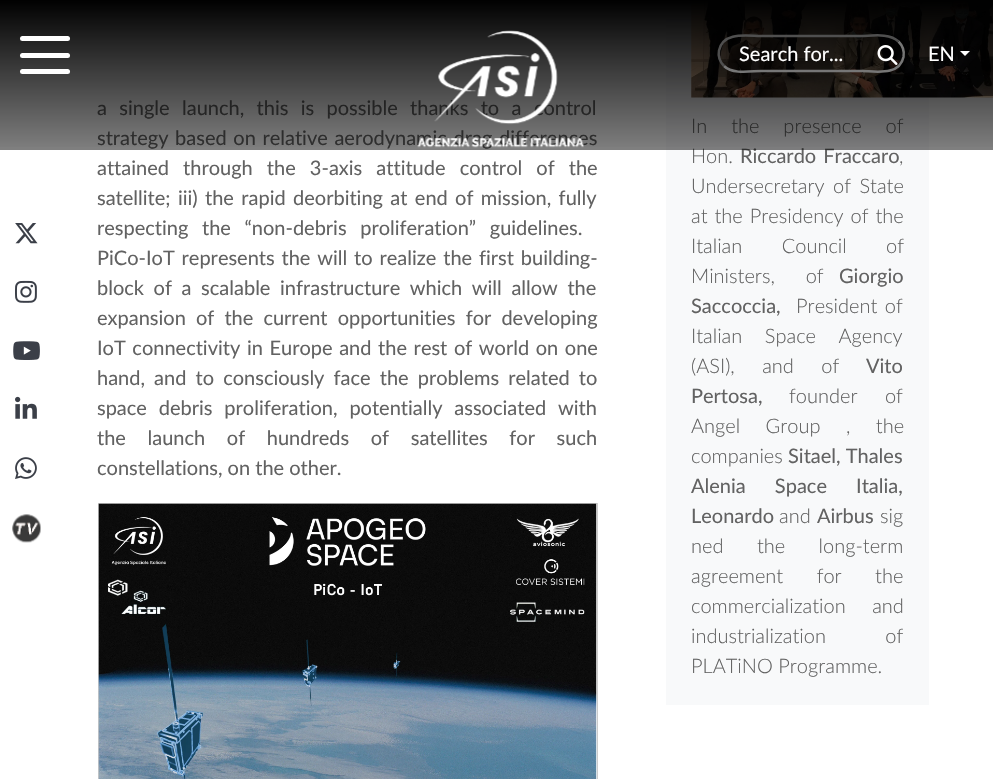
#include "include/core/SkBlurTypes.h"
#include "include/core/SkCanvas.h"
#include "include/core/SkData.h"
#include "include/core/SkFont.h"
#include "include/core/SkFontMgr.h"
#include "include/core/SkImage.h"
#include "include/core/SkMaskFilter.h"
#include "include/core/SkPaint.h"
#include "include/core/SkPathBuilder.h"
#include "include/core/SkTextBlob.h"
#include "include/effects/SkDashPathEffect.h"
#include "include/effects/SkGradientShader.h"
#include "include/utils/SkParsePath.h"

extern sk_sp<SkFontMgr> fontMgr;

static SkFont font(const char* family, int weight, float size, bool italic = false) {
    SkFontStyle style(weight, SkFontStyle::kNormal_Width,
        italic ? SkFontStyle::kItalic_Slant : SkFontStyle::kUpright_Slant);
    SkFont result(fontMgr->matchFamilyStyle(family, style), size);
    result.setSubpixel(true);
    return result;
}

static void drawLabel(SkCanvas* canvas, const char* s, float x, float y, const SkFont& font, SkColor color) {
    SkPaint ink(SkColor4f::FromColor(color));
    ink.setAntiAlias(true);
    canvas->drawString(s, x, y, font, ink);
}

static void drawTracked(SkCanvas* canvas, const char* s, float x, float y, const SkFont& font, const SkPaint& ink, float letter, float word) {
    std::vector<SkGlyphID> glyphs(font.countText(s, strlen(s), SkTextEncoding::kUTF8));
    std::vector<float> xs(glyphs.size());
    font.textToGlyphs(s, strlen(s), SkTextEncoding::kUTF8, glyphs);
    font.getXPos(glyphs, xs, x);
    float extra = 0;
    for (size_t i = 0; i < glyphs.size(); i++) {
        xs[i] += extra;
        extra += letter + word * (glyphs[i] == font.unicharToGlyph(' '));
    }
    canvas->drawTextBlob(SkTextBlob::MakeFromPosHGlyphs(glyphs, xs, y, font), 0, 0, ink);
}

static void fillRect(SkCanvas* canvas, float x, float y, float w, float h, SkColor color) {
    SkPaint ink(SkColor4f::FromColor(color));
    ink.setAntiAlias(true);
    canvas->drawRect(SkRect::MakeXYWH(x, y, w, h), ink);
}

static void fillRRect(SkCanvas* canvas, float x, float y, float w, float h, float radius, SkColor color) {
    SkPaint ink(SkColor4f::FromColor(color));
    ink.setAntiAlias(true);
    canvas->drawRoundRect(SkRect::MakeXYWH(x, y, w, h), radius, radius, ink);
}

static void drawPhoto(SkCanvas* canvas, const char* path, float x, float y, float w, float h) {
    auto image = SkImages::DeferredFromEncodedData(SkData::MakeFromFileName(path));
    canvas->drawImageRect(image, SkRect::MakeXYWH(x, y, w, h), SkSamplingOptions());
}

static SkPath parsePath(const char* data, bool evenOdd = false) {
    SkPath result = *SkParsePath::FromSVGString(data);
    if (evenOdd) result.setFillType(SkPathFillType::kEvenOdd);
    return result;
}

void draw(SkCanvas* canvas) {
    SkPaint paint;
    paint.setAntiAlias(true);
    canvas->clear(0xFFFFFFFF);
    drawPhoto(canvas, "assets/img1.png", 15, 223, 23, 21);
    drawPhoto(canvas, "assets/img2.png", 15, 280, 22, 23);
    drawPhoto(canvas, "assets/img3.png", 13, 341, 27, 19);
    drawPhoto(canvas, "assets/img4.png", 15, 396, 22, 23);
    drawPhoto(canvas, "assets/img5.png", 15, 457, 22, 22);
    drawPhoto(canvas, "assets/img6.png", 12, 514, 29, 29);
    SkFont font1 = font("Lato", 400, 20);
    paint.setColor(0xFF626262);
    drawTracked(canvas, "a single launch, this is possible thanks to a control", 97, 115, font1, paint, 0, 7.25f);
    drawTracked(canvas, "strategy based on relative aerodynamic drag differences", 97, 145, font1, paint, 0, 1.5f);
    fillRect(canvas, 666, 1, 263, 704, 0xFFF8F9FA);
    drawPhoto(canvas, "assets/img10.png", 691, 1, 302, 97);
    SkFont font2 = font("Lato", 300, 20);
    drawTracked(canvas, "In the presence of", 691, 133, font2, paint, 0, 18.5f);
    drawLabel(canvas, "Hon.", 691, 163, font2, 0xFF626262);
    drawTracked(canvas, "Riccardo Fraccaro", 740, 163, font1, paint, 0, 2);
    fillRect(canvas, 0, 1, 993, 149, 0x80000000);
    {
        const SkColor colors[] = {0xFF000000, 0x00000000};
        const float stops[] = {0, 1};
        const SkPoint ends[] = {{497, 0}, {497, 150}};
        paint.setShader(SkGradientShader::MakeLinear(ends, colors, stops, 2, SkTileMode::kClamp));
        paint.setAlpha(255);
    }
    canvas->drawRect(SkRect::MakeXYWH(0, 0, 993, 147), paint);
    drawPhoto(canvas, "assets/img7.png", 417, 30, 167, 118);
    fillRRect(canvas, 20, 36, 50, 5, 2.5f, 0xFFFFFFFF);
    fillRRect(canvas, 20, 53, 50, 5, 2.5f, 0xFFFFFFFF);
    fillRRect(canvas, 20, 69, 50, 5, 2.5f, 0xFFFFFFFF);
    paint.setStroke(true);
    paint.setStrokeWidth(2.5f);
    paint.setShader(nullptr);
    paint.setColor(0xFF767676);
    canvas->drawPath(parsePath("M898.5 41.5C902.5 45.5 904.5 51.5 903.5 57C899.5 76.5 874.5 71 861 71H761C752 71 733 75 724 66"), paint);
    paint.setColor(0xFF4F4F4F);
    canvas->drawPath(parsePath("M724 66C720 62 718 56 719 50.5C723 31 748 36 761 36H861C870.5 36 889.5 32.5 898.5 41.5"), paint);
    drawLabel(canvas, "Search for...", 739, 61, font1, 0xFFFFFFFF);
    drawPhoto(canvas, "assets/img8.png", 877, 45, 21, 20);
    drawLabel(canvas, "EN", 928, 61, font1, 0xFFFFFFFF);
    paint.setStroke(false);
    paint.setColor(0xFFFFFFFF);
    canvas->drawPath(parsePath("M960 51H970L965 56Z"), paint);
    paint.setColor(0xFF626262);
    drawTracked(canvas, "attained through the 3-axis attitude control of the", 97, 175, font1, paint, 0, 9);
    drawTracked(canvas, "satellite; iii) the rapid deorbiting at end of mission, fully", 97, 205, font1, paint, 0, 2.25f);
    drawTracked(canvas, "respecting the “non-debris proliferation” guidelines.", 97, 235, font1, paint, 0, 8.5f);
    drawTracked(canvas, "PiCo-IoT represents the will to realize the first building-", 97, 265, font1, paint, 0, 1.75f);
    drawTracked(canvas, "block of a scalable infrastructure which will allow the", 97, 295, font1, paint, 0, 4.5f);
    drawTracked(canvas, "expansion of the current opportunities for developing", 97, 325, font1, paint, 0, 5);
    drawTracked(canvas, "IoT connectivity in Europe and the rest of world on one", 97, 355, font1, paint, 0, 1.5f);
    drawTracked(canvas, "hand, and to consciously face the problems related to", 97, 385, font1, paint, 0, 4);
    drawTracked(canvas, "space debris proliferation, potentially associated with", 97, 415, font1, paint, 0, 6.75f);
    drawTracked(canvas, "the launch of hundreds of satellites for such", 97, 445, font1, paint, 0, 16.5f);
    drawLabel(canvas, "constellations, on the other.", 97, 475, font1, 0xFF626262);
    paint.setStroke(true);
    paint.setStrokeWidth(1);
    paint.setColor(0xFFCCCCCC);
    canvas->drawRect(SkRect::MakeXYWH(98.5f, 503.5f, 499, 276), paint);
    drawPhoto(canvas, "assets/img9.png", 98, 503, 499, 276);
    drawLabel(canvas, ",", 899, 163, font2, 0xFF626262);
    paint.setStroke(false);
    paint.setColor(0xFF626262);
    drawTracked(canvas, "Undersecretary of State", 691, 193, font2, paint, 0, 3);
    drawTracked(canvas, "at the Presidency of the", 691, 223, font2, paint, 0, 1.5f);
    drawTracked(canvas, "Italian Council of", 691, 253, font2, paint, 0, 34);
    drawTracked(canvas, "Ministers,  of", 691, 283, font2, paint, 0, 10);
    drawLabel(canvas, "Giorgio", 839, 283, font1, 0xFF626262);
    drawLabel(canvas, "Saccoccia,", 691, 313, font1, 0xFF626262);
    drawTracked(canvas, "President of", 796, 313, font2, paint, 0, 2);
    drawTracked(canvas, "Italian Space Agency", 691, 343, font2, paint, 0, 17);
    drawTracked(canvas, "(ASI), and of", 691, 373, font2, paint, 0, 22);
    drawLabel(canvas, "Vito", 866, 373, font1, 0xFF626262);
    drawLabel(canvas, "Pertosa,", 691, 403, font1, 0xFF626262);
    drawTracked(canvas, "founder of", 789, 403, font2, paint, 0, 22);
    drawTracked(canvas, "Angel Group , the", 691, 433, font2, paint, 0, 20);
    drawLabel(canvas, "companies", 691, 463, font2, 0xFF626262);
    drawLabel(canvas, "Sitael, Thales", 788, 463, font1, 0xFF626262);
    drawTracked(canvas, "Alenia Space Italia,", 691, 493, font1, paint, 0, 24);
    drawLabel(canvas, "Leonardo", 691, 523, font1, 0xFF626262);
    drawLabel(canvas, "and", 779, 523, font2, 0xFF626262);
    drawLabel(canvas, "Airbus", 817, 523, font1, 0xFF626262);
    drawLabel(canvas, "sig", 880, 523, font2, 0xFF626262);
    drawTracked(canvas, "ned the long-term", 691, 553, font2, paint, 0, 28);
    drawTracked(canvas, "agreement for the", 691, 583, font2, paint, 0, 28);
    drawTracked(canvas, "commercialization and", 691, 613, font2, paint, 0, 21);
    drawTracked(canvas, "industrialization of", 691, 643, font2, paint, 0, 54);
    drawLabel(canvas, "PLATiNO Programme.", 691, 673, font2, 0xFF626262);
}
